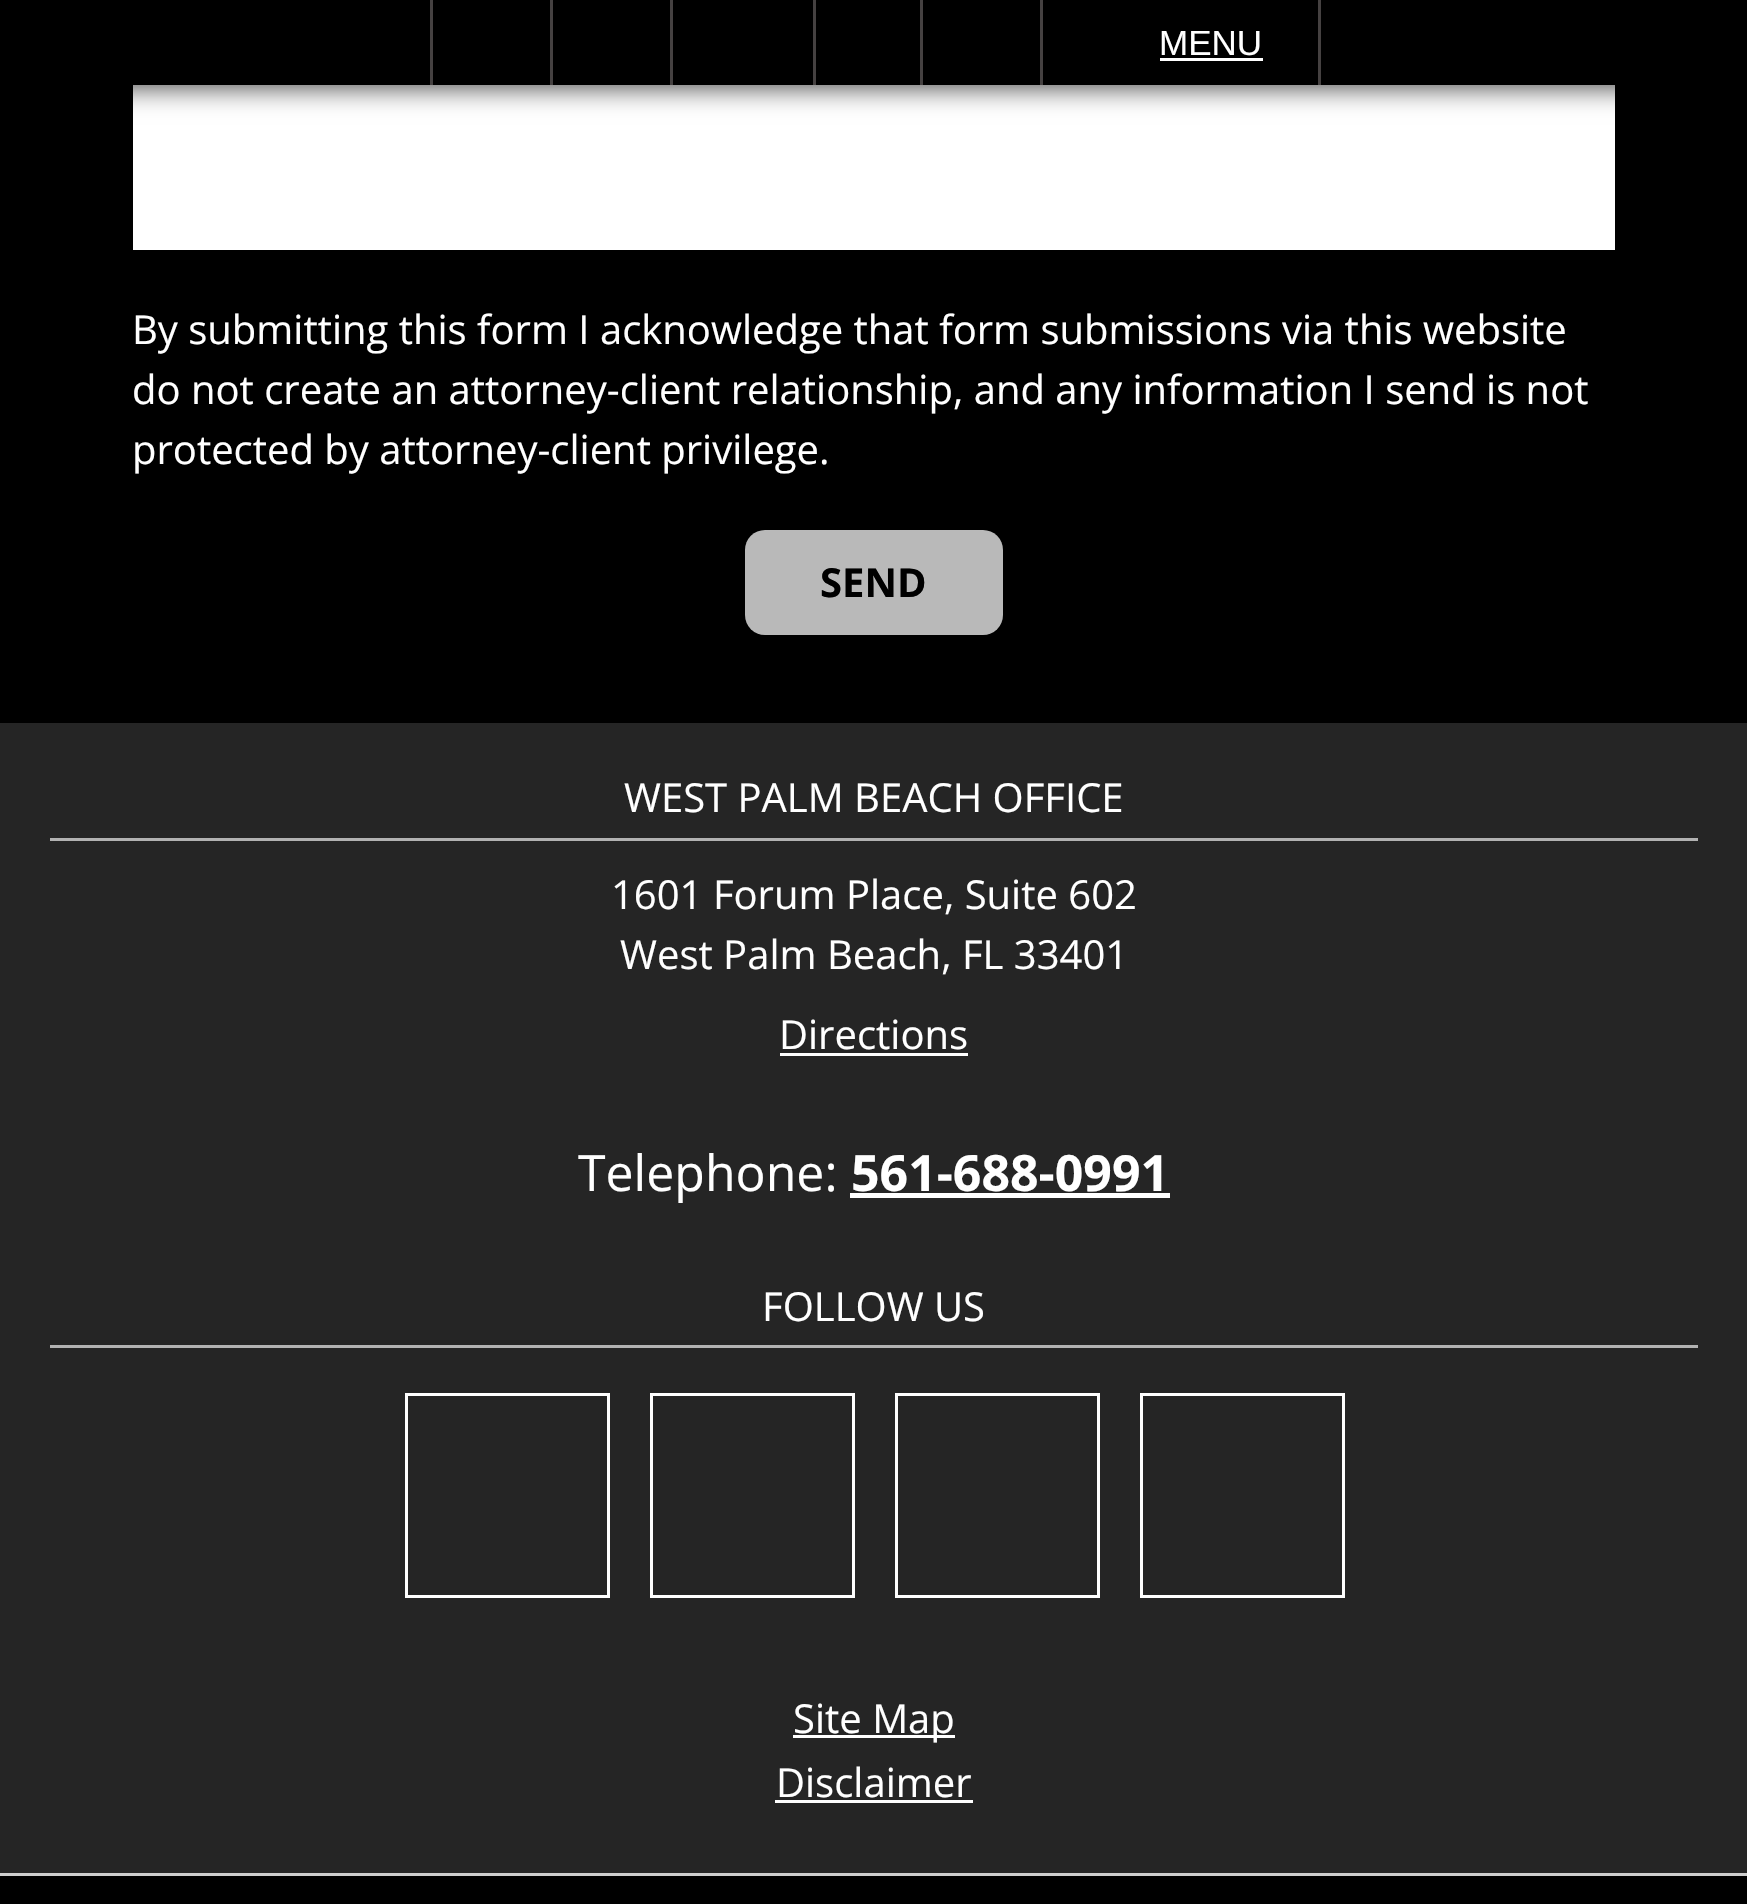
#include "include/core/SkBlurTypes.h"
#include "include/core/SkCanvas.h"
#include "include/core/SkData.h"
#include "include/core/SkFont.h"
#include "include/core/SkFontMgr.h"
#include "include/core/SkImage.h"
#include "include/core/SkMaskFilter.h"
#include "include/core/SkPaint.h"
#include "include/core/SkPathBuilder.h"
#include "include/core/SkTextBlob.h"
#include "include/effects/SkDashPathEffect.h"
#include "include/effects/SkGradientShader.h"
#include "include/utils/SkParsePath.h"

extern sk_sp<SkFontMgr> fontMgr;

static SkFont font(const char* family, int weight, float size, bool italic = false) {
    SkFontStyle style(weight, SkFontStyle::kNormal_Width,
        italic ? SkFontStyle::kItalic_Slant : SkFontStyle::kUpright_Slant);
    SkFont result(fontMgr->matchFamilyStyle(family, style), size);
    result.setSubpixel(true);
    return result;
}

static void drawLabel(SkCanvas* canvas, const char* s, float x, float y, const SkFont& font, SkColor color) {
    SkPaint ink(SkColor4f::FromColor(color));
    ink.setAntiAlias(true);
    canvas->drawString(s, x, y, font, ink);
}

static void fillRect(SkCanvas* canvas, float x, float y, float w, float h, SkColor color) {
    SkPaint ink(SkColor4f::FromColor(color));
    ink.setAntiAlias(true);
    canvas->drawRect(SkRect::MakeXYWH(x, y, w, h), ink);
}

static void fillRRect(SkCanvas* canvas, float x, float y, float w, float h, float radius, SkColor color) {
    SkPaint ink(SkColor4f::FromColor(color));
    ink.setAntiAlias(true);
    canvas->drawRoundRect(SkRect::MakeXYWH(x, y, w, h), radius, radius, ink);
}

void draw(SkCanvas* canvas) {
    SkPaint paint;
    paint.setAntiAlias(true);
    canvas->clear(0xFF000000);
    fillRect(canvas, 133, 85, 1482, 165, 0xFFFFFFFF);
    paint.setColor(0xB3000000);
    paint.setMaskFilter(SkMaskFilter::MakeBlur(kNormal_SkBlurStyle, 12.5f));
    canvas->drawRect(SkRect::MakeXYWH(0, 3, 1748, 85), paint);
    paint.setMaskFilter(nullptr);
    fillRect(canvas, 550, 0, 3, 85, 0xFF454141);
    fillRect(canvas, 430, 0, 3, 85, 0xFF454141);
    fillRect(canvas, 670, 0, 3, 85, 0xFF454141);
    fillRect(canvas, 813, 0, 3, 85, 0xFF454141);
    fillRect(canvas, 920, 0, 3, 85, 0xFF454141);
    fillRect(canvas, 1040, 0, 3, 85, 0xFF454141);
    fillRect(canvas, 1318, 0, 3, 85, 0xFF454141);
    SkFont font1 = font("Liberation Sans", 400, 35);
    drawLabel(canvas, "MENU", 1159, 55, font1, 0xFFFFFFFF);
    fillRect(canvas, 1160, 58, 103, 3, 0xFFFFFFFF);
    SkFont font2 = font("Open Sans", 400, 40);
    drawLabel(canvas, "By submitting this form I acknowledge that form submissions via this website", 132, 344, font2, 0xFFFFFFFF);
    drawLabel(canvas, "do not create an attorney-client relationship, and any information I send is not", 132, 404, font2, 0xFFFFFFFF);
    drawLabel(canvas, "protected by attorney-client privilege.", 132, 464, font2, 0xFFFFFFFF);
    fillRRect(canvas, 745, 530, 258, 105, 20, 0xFFB9B9B9);
    SkFont font3 = font("Open Sans", 700, 40);
    drawLabel(canvas, "SEND", 820, 597, font3, 0xFF000000);
    fillRect(canvas, 0, 723, 1747, 1150, 0xFF252525);
    fillRect(canvas, 50, 838, 1648, 3, 0xFFB2B2B2);
    drawLabel(canvas, "WEST PALM BEACH OFFICE", 624, 812, font2, 0xFFFFFFFF);
    drawLabel(canvas, "1601 Forum Place, Suite 602", 611, 909, font2, 0xFFFFFFFF);
    drawLabel(canvas, "West Palm Beach, FL 33401", 620, 969, font2, 0xFFFFFFFF);
    drawLabel(canvas, "Directions", 779, 1049, font2, 0xFFFFFFFF);
    fillRect(canvas, 780, 1053, 188, 3, 0xFFFFFFFF);
    SkFont font4 = font("Open Sans", 400, 50);
    drawLabel(canvas, "Telephone:", 578, 1191, font4, 0xFFFFFFFF);
    SkFont font5 = font("Open Sans", 700, 50);
    drawLabel(canvas, "561-688-0991", 851, 1191, font5, 0xFFFFFFFF);
    fillRect(canvas, 850, 1193, 320, 5, 0xFFFFFFFF);
    fillRect(canvas, 50, 1345, 1648, 3, 0xFFB2B2B2);
    drawLabel(canvas, "FOLLOW US", 762, 1321, font2, 0xFFFFFFFF);
    paint.setStroke(true);
    paint.setStrokeWidth(3);
    paint.setColor(0xFFFFFFFF);
    canvas->drawRect(SkRect::MakeXYWH(406.5f, 1394.5f, 202, 202), paint);
    canvas->drawRect(SkRect::MakeXYWH(651.5f, 1394.5f, 202, 202), paint);
    canvas->drawRect(SkRect::MakeXYWH(896.5f, 1394.5f, 202, 202), paint);
    canvas->drawRect(SkRect::MakeXYWH(1141.5f, 1394.5f, 202, 202), paint);
    fillRect(canvas, 793, 1735, 162, 3, 0xFFFFFFFF);
    drawLabel(canvas, "Site Map", 793, 1733, font2, 0xFFFFFFFF);
    drawLabel(canvas, "Disclaimer", 776, 1797, font2, 0xFFFFFFFF);
    fillRect(canvas, 775, 1800, 198, 3, 0xFFFFFFFF);
    fillRect(canvas, 0, 1873, 1747, 3, 0xFFCECECE);
}
